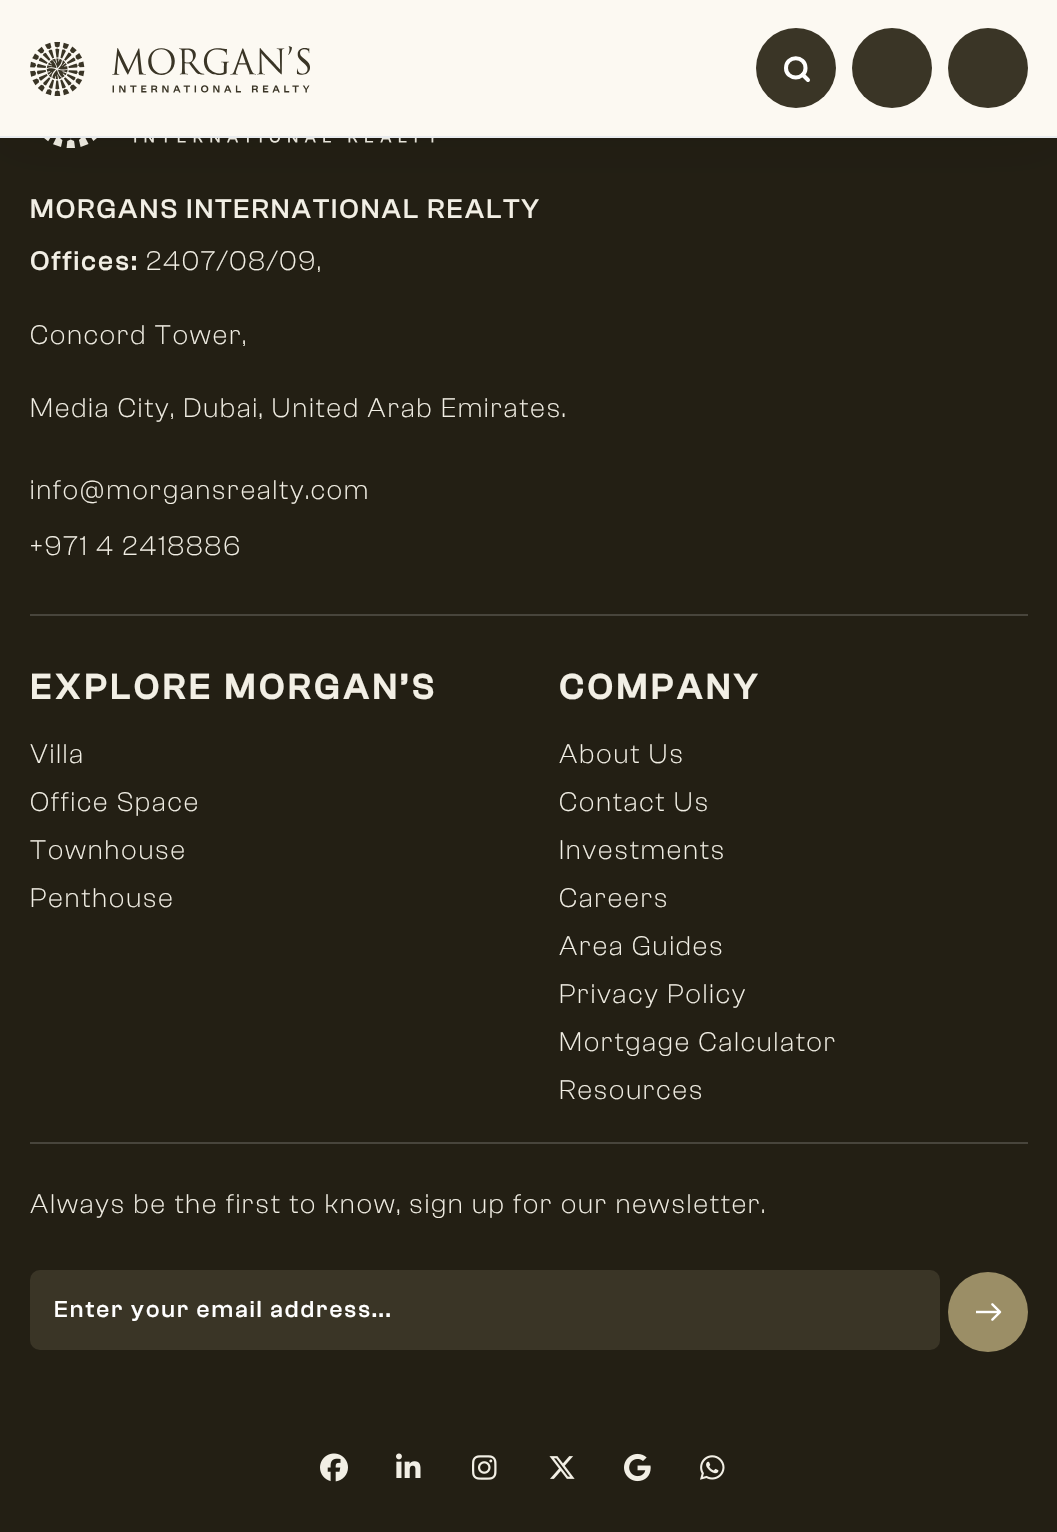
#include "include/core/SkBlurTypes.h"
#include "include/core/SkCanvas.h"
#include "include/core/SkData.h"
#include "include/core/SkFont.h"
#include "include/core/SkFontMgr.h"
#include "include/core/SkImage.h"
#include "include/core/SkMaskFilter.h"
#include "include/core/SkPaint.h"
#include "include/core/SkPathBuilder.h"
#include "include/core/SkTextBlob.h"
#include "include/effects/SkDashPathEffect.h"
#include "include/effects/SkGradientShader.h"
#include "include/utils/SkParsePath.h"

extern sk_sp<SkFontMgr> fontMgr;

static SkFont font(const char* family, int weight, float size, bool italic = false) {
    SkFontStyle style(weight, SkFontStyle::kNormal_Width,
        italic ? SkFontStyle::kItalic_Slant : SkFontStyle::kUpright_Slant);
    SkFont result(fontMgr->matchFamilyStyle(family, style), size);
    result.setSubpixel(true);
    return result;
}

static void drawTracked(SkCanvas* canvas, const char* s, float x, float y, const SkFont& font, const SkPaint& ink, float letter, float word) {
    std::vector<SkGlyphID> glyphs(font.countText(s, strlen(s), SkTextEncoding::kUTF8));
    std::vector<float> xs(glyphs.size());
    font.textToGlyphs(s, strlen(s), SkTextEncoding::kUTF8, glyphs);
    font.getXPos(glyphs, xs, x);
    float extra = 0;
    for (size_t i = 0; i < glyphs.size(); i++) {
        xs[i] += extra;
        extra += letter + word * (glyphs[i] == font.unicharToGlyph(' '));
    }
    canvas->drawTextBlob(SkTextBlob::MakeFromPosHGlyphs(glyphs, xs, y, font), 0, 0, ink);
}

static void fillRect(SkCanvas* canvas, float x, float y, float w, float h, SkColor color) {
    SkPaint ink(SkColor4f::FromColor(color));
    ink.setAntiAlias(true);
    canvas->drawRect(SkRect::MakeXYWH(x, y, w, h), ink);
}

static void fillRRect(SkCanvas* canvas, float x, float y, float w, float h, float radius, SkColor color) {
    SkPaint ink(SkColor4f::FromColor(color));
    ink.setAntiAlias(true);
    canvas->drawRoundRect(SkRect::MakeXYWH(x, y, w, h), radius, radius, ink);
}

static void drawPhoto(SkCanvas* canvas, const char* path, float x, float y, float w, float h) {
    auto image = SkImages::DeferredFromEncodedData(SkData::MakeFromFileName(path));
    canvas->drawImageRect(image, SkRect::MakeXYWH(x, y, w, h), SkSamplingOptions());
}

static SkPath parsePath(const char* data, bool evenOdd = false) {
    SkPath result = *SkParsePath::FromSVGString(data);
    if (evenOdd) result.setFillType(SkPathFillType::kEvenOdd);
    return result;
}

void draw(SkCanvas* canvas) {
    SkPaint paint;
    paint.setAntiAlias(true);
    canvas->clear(0xFF231F14);
    drawPhoto(canvas, "assets/img2.png", 44, 138, 390, 10);
    paint.setColor(0x1A000000);
    paint.setMaskFilter(SkMaskFilter::MakeBlur(kNormal_SkBlurStyle, 30));
    canvas->drawRect(SkRect::MakeXYWH(0, 0, 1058, 138), paint);
    paint.setMaskFilter(nullptr);
    fillRect(canvas, 0, 0, 1057, 136, 0xFFFCF9F2);
    fillRect(canvas, 0, 136, 1057, 2, 0xFFE9ECEF);
    drawPhoto(canvas, "assets/img1.png", 30, 42, 280, 54);
    paint.setColor(0xFF3A3526);
    canvas->drawCircle(796, 68, 40, paint);
    paint.setStroke(true);
    paint.setStrokeWidth(4);
    paint.setStrokeCap(SkPaint::kRound_Cap);
    paint.setStrokeJoin(SkPaint::kRound_Join);
    paint.setColor(0xFFFFFFFF);
    canvas->drawPath(parsePath("M802.5 74.5L808 80M805.5 68C805.5 80.5 786 80.5 786 68C786 55 805.5 55 805.5 68Z"), paint);
    paint.setStroke(false);
    paint.setColor(0xFF3A3526);
    canvas->drawCircle(892, 68, 40, paint);
    canvas->drawCircle(988, 68, 40, paint);
    fillRect(canvas, 30, 614, 998, 2, 0xFF48453C);
    SkFont font1 = font("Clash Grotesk", 500, 28);
    paint.setColor(0xFFF2EFE5);
    drawTracked(canvas, "MORGANS INTERNATIONAL REALTY", 30, 218, font1, paint, 2, 0);
    drawTracked(canvas, "Offices:", 30, 270, font1, paint, 2, 0);
    SkFont font2 = font("Clash Grotesk", 300, 28);
    drawTracked(canvas, "2407/08/09,", 146, 270, font2, paint, 2, 0);
    drawTracked(canvas, "Concord Tower,", 30, 344, font2, paint, 2, 0);
    drawTracked(canvas, "Media City, Dubai, United Arab Emirates.", 30, 417, font2, paint, 2, 0);
    drawTracked(canvas, "info@morgansrealty.com", 30, 499, font2, paint, 2, 0);
    drawTracked(canvas, "+971 4 2418886", 30, 555, font2, paint, 2, 0);
    SkFont font3 = font("Clash Grotesk", 700, 36);
    drawTracked(canvas, "EXPLORE MORGAN’S", 30, 699, font3, paint, 4, 0);
    drawTracked(canvas, "Villa", 30, 763, font2, paint, 2, 0);
    drawTracked(canvas, "Office Space", 30, 811, font2, paint, 2, 0);
    drawTracked(canvas, "Townhouse", 30, 859, font2, paint, 2, 0);
    drawTracked(canvas, "Penthouse", 30, 907, font2, paint, 2, 0);
    drawTracked(canvas, "COMPANY", 559, 699, font3, paint, 4, 0);
    drawTracked(canvas, "About Us", 559, 763, font2, paint, 2, 0);
    drawTracked(canvas, "Contact Us", 559, 811, font2, paint, 2, 0);
    drawTracked(canvas, "Investments", 559, 859, font2, paint, 2, 0);
    drawTracked(canvas, "Careers", 559, 907, font2, paint, 2, 0);
    drawTracked(canvas, "Area Guides", 559, 955, font2, paint, 2, 0);
    drawTracked(canvas, "Privacy Policy", 559, 1003, font2, paint, 2, 0);
    drawTracked(canvas, "Mortgage Calculator", 559, 1051, font2, paint, 2, 0);
    drawTracked(canvas, "Resources", 559, 1099, font2, paint, 2, 0);
    fillRect(canvas, 30, 1142, 998, 2, 0xFF48453C);
    drawTracked(canvas, "Always be the first to know, sign up for our newsletter.", 30, 1213, font2, paint, 2, 0);
    fillRRect(canvas, 30, 1270, 910, 80, 10, 0xFF3A3526);
    SkFont font4 = font("Clash Grotesk", 500, 24);
    paint.setColor(0xFFFFFFFF);
    drawTracked(canvas, "Enter your email address...", 54, 1317, font4, paint, 2, 0);
    paint.setColor(0xFF9B8E66);
    canvas->drawCircle(988, 1312, 40, paint);
    drawPhoto(canvas, "assets/img3.png", 976, 1303, 26, 18);
    drawPhoto(canvas, "assets/img4.png", 320, 1453, 28, 29);
    drawPhoto(canvas, "assets/img5.png", 396, 1453, 25, 25);
    drawPhoto(canvas, "assets/img6.png", 472, 1455, 25, 25);
    drawPhoto(canvas, "assets/img7.png", 549, 1456, 26, 23);
    drawPhoto(canvas, "assets/img8.png", 624, 1453, 27, 29);
    drawPhoto(canvas, "assets/img9.png", 700, 1455, 25, 25);
}
